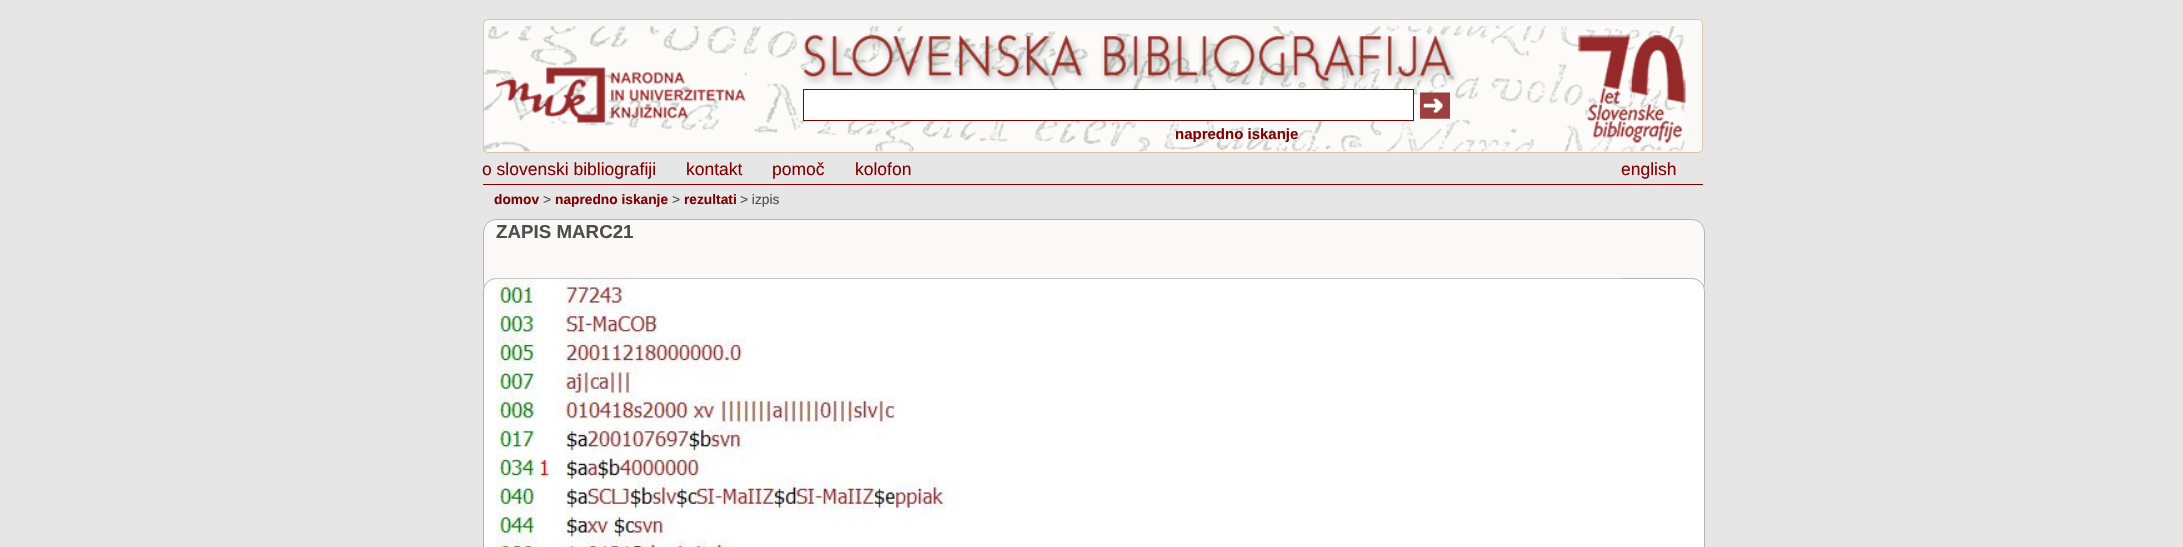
#include "include/core/SkBlurTypes.h"
#include "include/core/SkCanvas.h"
#include "include/core/SkData.h"
#include "include/core/SkFont.h"
#include "include/core/SkFontMgr.h"
#include "include/core/SkImage.h"
#include "include/core/SkMaskFilter.h"
#include "include/core/SkPaint.h"
#include "include/core/SkPathBuilder.h"
#include "include/core/SkTextBlob.h"
#include "include/effects/SkDashPathEffect.h"
#include "include/effects/SkGradientShader.h"
#include "include/utils/SkParsePath.h"

extern sk_sp<SkFontMgr> fontMgr;

static SkFont font(const char* family, int weight, float size, bool italic = false) {
    SkFontStyle style(weight, SkFontStyle::kNormal_Width,
        italic ? SkFontStyle::kItalic_Slant : SkFontStyle::kUpright_Slant);
    SkFont result(fontMgr->matchFamilyStyle(family, style), size);
    result.setSubpixel(true);
    return result;
}

static void drawLabel(SkCanvas* canvas, const char* s, float x, float y, const SkFont& font, SkColor color) {
    SkPaint ink(SkColor4f::FromColor(color));
    ink.setAntiAlias(true);
    canvas->drawString(s, x, y, font, ink);
}

static void fillRect(SkCanvas* canvas, float x, float y, float w, float h, SkColor color) {
    SkPaint ink(SkColor4f::FromColor(color));
    ink.setAntiAlias(true);
    canvas->drawRect(SkRect::MakeXYWH(x, y, w, h), ink);
}

static void drawPhoto(SkCanvas* canvas, const char* path, float x, float y, float w, float h) {
    auto image = SkImages::DeferredFromEncodedData(SkData::MakeFromFileName(path));
    canvas->drawImageRect(image, SkRect::MakeXYWH(x, y, w, h), SkSamplingOptions());
}

void draw(SkCanvas* canvas) {
    SkPaint paint;
    paint.setAntiAlias(true);
    canvas->clear(0xFFE6E6E6);
    paint.setColor(0xFFFBF9F7);
    canvas->drawRoundRect(SkRect::MakeXYWH(483.5f, 19.5f, 1219, 133), 4.5f, 4.5f, paint);
    paint.setStroke(true);
    paint.setStrokeWidth(1);
    paint.setColor(0xFFDAC5AB);
    canvas->drawRoundRect(SkRect::MakeXYWH(483.5f, 19.5f, 1219, 133), 4.5f, 4.5f, paint);
    drawPhoto(canvas, "assets/img1.png", 483, 26, 1203, 126);
    drawPhoto(canvas, "assets/img2.png", 496, 55, 251, 68);
    paint.setStroke(false);
    paint.setColor(0xFFFFFFFF);
    canvas->drawRect(SkRect::MakeXYWH(803.5f, 89.5f, 610, 31), paint);
    paint.setStroke(true);
    paint.setColor(0xFF800000);
    canvas->drawRect(SkRect::MakeXYWH(803.5f, 89.5f, 610, 31), paint);
    drawPhoto(canvas, "assets/img3.png", 1420, 92, 30, 27);
    SkFont font1 = font("Liberation Sans", 700, 15);
    drawLabel(canvas, "napredno iskanje", 1175, 139, font1, 0xFF800000);
    fillRect(canvas, 483, 184, 1220, 1, 0xFF800000);
    SkFont font2 = font("Liberation Sans", 400, 17.5f);
    drawLabel(canvas, "o slovenski bibliografiji", 482, 175, font2, 0xFF800000);
    drawLabel(canvas, "kontakt", 686, 175, font2, 0xFF800000);
    drawLabel(canvas, "pomoč", 772, 175, font2, 0xFF800000);
    drawLabel(canvas, "kolofon", 855, 175, font2, 0xFF800000);
    drawLabel(canvas, "english", 1621, 175, font2, 0xFF800000);
    SkFont font3 = font("Liberation Sans", 700, 13.75f);
    drawLabel(canvas, "domov", 494, 204, font3, 0xFF800000);
    SkFont font4 = font("Liberation Sans", 400, 13.75f);
    drawLabel(canvas, ">", 543, 204, font4, 0xFF4E4E4E);
    drawLabel(canvas, "napredno iskanje", 555, 204, font3, 0xFF800000);
    drawLabel(canvas, ">", 672, 204, font4, 0xFF4E4E4E);
    drawLabel(canvas, "rezultati", 684, 204, font3, 0xFF800000);
    drawLabel(canvas, "> izpis", 740, 204, font4, 0xFF4E4E4E);
    paint.setStroke(false);
    paint.setColor(0xFFFBF9F7);
    canvas->drawRoundRect(SkRect::MakeXYWH(483.5f, 219.5f, 1221, 76), 12.5f, 12.5f, paint);
    paint.setStroke(true);
    paint.setColor(0xFFB4B4B4);
    canvas->drawRoundRect(SkRect::MakeXYWH(483.5f, 219.5f, 1221, 76), 12.5f, 12.5f, paint);
    SkFont font5 = font("Liberation Sans", 700, 18.75f);
    drawLabel(canvas, "ZAPIS MARC21", 496, 238, font5, 0xFF4E4E4E);
    paint.setStroke(false);
    paint.setColor(0xFFFFFFFF);
    canvas->drawRoundRect(SkRect::MakeXYWH(483.5f, 278.5f, 1221, 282), 12.5f, 12.5f, paint);
    paint.setStroke(true);
    paint.setColor(0xFFB4B4B4);
    canvas->drawRoundRect(SkRect::MakeXYWH(483.5f, 278.5f, 1221, 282), 12.5f, 12.5f, paint);
    drawPhoto(canvas, "assets/img4.png", 496, 278, 1126, 269);
}
